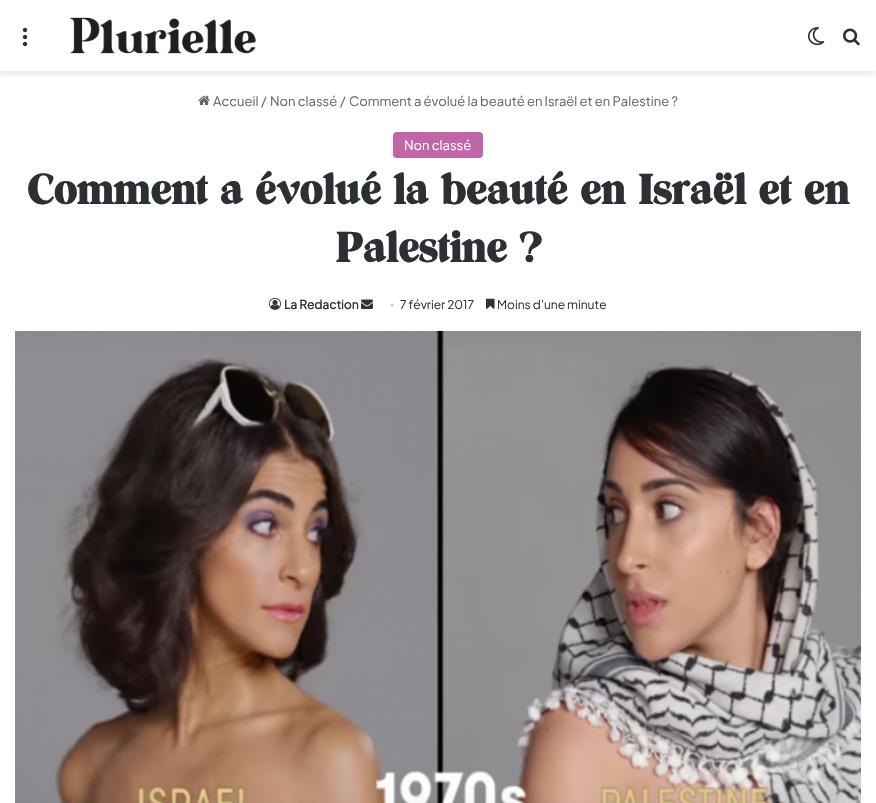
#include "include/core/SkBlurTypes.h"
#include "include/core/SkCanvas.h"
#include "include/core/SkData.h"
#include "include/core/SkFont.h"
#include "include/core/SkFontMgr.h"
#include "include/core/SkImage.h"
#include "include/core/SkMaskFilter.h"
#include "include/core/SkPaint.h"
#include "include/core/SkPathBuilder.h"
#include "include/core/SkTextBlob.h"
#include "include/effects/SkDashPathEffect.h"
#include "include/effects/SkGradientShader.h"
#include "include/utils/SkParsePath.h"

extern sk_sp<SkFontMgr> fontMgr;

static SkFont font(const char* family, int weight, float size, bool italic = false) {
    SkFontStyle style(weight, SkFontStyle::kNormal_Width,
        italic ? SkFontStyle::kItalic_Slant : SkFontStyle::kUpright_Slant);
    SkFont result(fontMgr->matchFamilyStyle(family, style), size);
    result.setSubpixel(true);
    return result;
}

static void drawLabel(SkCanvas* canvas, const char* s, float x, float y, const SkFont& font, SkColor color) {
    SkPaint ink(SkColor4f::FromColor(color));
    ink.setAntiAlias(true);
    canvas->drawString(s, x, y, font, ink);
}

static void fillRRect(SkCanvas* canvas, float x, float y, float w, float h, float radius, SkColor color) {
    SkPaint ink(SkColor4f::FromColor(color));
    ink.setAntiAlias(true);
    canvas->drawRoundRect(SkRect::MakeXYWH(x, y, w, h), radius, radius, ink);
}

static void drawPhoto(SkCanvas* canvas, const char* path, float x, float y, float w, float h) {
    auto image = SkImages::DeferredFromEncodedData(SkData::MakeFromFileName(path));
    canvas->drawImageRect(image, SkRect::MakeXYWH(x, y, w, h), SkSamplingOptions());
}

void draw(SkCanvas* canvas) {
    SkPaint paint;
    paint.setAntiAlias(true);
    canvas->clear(0xFFFFFFFF);
    canvas->save();
    canvas->clipRect(SkRect::MakeXYWH(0, 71, 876, 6));
    paint.setColor(0x1A000000);
    paint.setMaskFilter(SkMaskFilter::MakeBlur(kNormal_SkBlurStyle, 3.5f));
    canvas->drawRect(SkRect::MakeXYWH(0, 3, 876, 71), paint);
    paint.setMaskFilter(nullptr);
    canvas->restore();
    drawPhoto(canvas, "assets/img1.png", 22, 27, 6, 20);
    drawPhoto(canvas, "assets/img2.png", 70, 17, 187, 37);
    drawPhoto(canvas, "assets/img3.png", 808, 27, 17, 19);
    drawPhoto(canvas, "assets/img4.png", 843, 28, 17, 18);
    drawPhoto(canvas, "assets/img5.png", 198, 95, 12, 11);
    SkFont font1 = font("Plus Jakarta Sans", 400, 13);
    drawLabel(canvas, "Accueil", 213, 106, font1, 0xFF666666);
    drawLabel(canvas, "/", 261, 106, font1, 0xFF666666);
    drawLabel(canvas, "Non classé", 270, 106, font1, 0xFF666666);
    drawLabel(canvas, "/", 340, 106, font1, 0xFF666666);
    drawLabel(canvas, "Comment a évolué la beauté en Israël et en Palestine ?", 349, 106, font1, 0xFF666666);
    fillRRect(canvas, 393, 132, 90, 26, 4, 0xFFBF65A8);
    drawLabel(canvas, "Non classé", 404, 150, font1, 0xFFFFFFFF);
    SkFont font2 = font("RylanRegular", 700, 41);
    drawLabel(canvas, "Comment a évolué la beauté en Israël et en", 27, 204, font2, 0xFF2C2F34);
    drawLabel(canvas, "Palestine ?", 335, 262, font2, 0xFF2C2F34);
    drawPhoto(canvas, "assets/img6.png", 269, 297, 12, 13);
    SkFont font3 = font("Plus Jakarta Sans", 700, 12);
    drawLabel(canvas, "La Redaction", 284, 309, font3, 0xFF333333);
    drawPhoto(canvas, "assets/img7.png", 361, 299, 12, 10);
    SkFont font4 = font("Liberation Serif", 400, 12);
    drawLabel(canvas, "•", 390, 309, font4, 0xFFCCCCCC);
    SkFont font5 = font("Plus Jakarta Sans", 400, 12);
    drawLabel(canvas, "7 février 2017", 400, 309, font5, 0xFF333333);
    drawPhoto(canvas, "assets/img8.png", 486, 298, 9, 11);
    drawLabel(canvas, "Moins d’une minute", 497, 309, font5, 0xFF333333);
    drawPhoto(canvas, "assets/img9.png", 15, 331, 846, 472);
}
